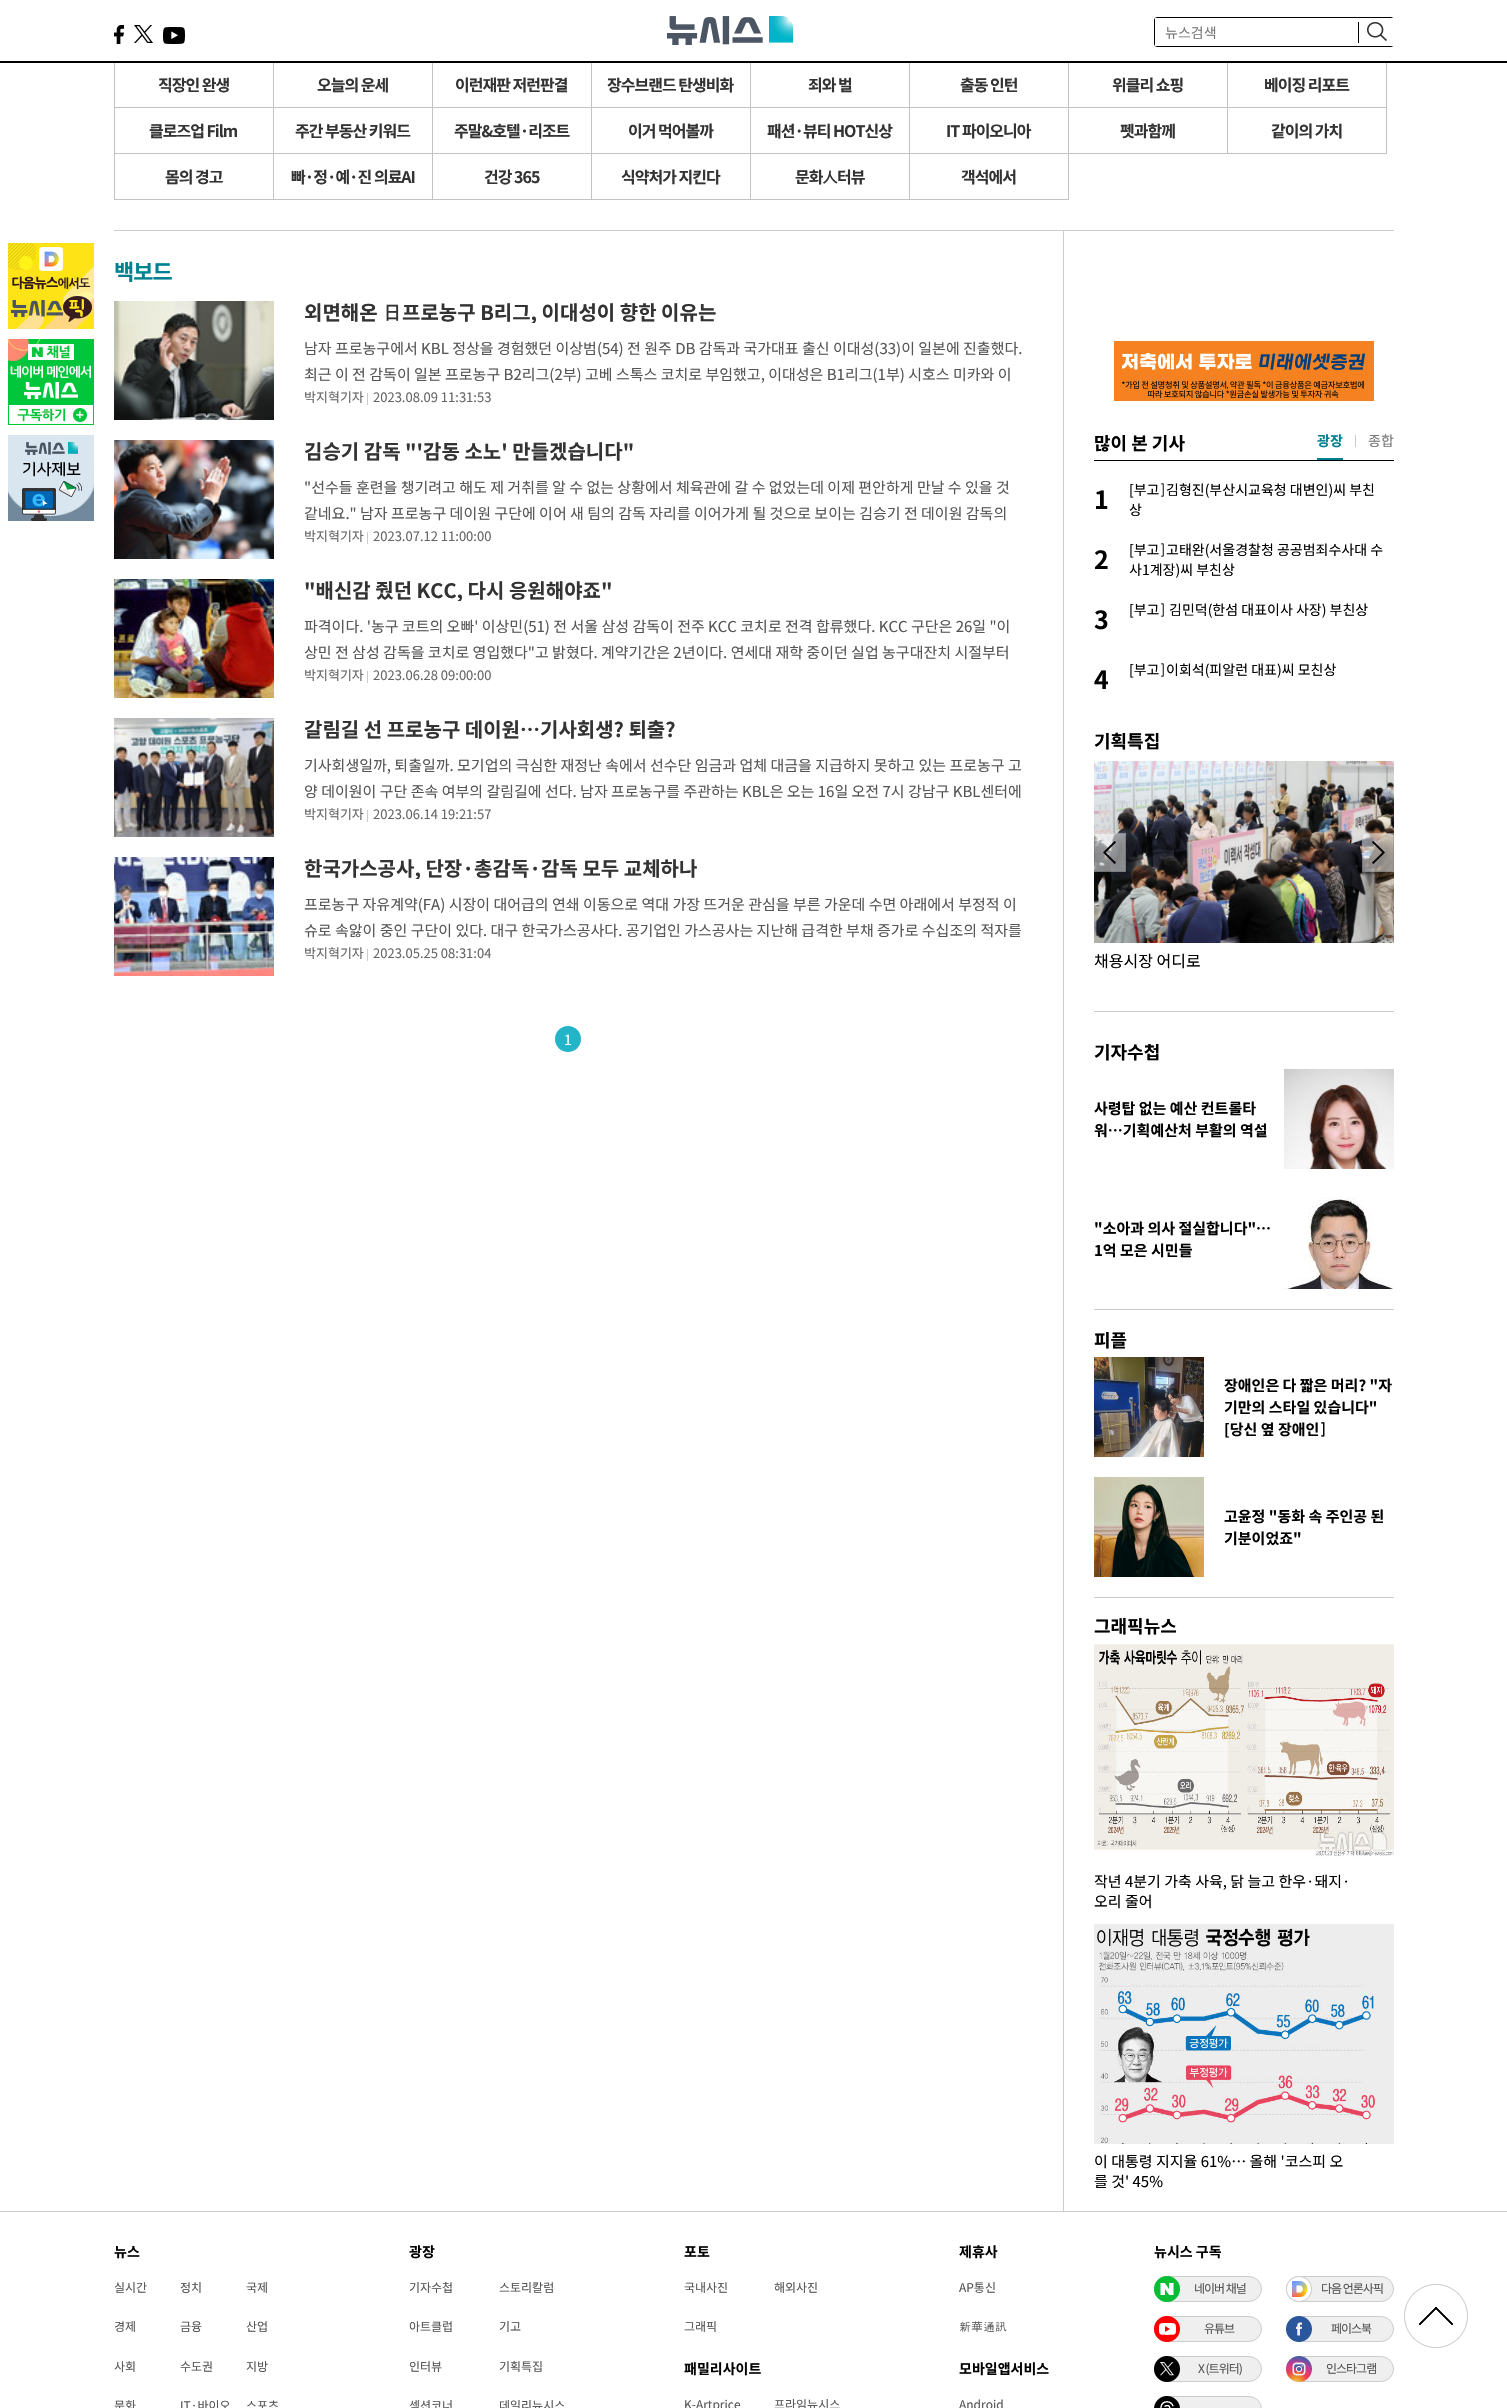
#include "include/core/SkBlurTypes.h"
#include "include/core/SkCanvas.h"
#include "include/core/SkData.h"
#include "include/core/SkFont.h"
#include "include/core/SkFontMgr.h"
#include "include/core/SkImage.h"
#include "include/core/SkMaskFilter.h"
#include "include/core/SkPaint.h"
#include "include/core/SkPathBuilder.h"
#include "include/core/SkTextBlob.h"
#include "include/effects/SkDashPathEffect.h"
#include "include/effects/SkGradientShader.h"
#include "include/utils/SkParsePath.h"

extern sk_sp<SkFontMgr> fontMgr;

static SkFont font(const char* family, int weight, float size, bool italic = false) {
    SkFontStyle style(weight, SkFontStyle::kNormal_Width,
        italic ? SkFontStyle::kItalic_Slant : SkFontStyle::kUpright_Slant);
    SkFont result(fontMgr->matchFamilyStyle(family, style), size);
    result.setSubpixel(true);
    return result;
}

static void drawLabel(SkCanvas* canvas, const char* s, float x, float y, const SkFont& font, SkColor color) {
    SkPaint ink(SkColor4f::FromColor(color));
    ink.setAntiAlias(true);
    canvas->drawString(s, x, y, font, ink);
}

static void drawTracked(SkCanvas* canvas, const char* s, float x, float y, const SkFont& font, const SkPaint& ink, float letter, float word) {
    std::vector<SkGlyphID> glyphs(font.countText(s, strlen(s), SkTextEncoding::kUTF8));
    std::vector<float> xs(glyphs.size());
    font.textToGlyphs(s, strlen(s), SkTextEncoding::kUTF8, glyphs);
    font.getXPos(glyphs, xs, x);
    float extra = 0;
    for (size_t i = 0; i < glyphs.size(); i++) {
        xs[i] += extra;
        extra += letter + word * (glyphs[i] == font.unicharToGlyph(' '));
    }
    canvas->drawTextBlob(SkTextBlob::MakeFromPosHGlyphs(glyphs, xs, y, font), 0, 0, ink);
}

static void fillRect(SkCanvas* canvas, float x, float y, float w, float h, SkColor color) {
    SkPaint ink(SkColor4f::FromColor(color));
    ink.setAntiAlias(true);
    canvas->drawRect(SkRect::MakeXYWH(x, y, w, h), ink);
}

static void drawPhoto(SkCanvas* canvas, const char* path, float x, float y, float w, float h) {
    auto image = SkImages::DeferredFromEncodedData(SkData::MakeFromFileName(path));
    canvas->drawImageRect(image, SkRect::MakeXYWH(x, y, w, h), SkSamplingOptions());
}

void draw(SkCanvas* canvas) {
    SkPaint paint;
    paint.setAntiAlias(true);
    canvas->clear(0xFFFFFFFF);
    drawPhoto(canvas, "assets/img1.png", 8, 243, 86, 86);
    drawPhoto(canvas, "assets/img2.png", 8, 339, 86, 86);
    drawPhoto(canvas, "assets/img3.png", 8, 435, 86, 86);
    paint.setStroke(true);
    paint.setStrokeWidth(1);
    paint.setColor(0xFFC2C2C2);
    canvas->drawRect(SkRect::MakeXYWH(114.5f, 61.5f, 159, 46), paint);
    canvas->drawRect(SkRect::MakeXYWH(273.5f, 61.5f, 159, 46), paint);
    canvas->drawRect(SkRect::MakeXYWH(432.5f, 61.5f, 159, 46), paint);
    canvas->drawRect(SkRect::MakeXYWH(591.5f, 61.5f, 159, 46), paint);
    canvas->drawRect(SkRect::MakeXYWH(750.5f, 61.5f, 159, 46), paint);
    canvas->drawRect(SkRect::MakeXYWH(909.5f, 61.5f, 159, 46), paint);
    canvas->drawRect(SkRect::MakeXYWH(1068.5f, 61.5f, 159, 46), paint);
    canvas->drawRect(SkRect::MakeXYWH(1227.5f, 61.5f, 159, 46), paint);
    fillRect(canvas, 0, 61, 1507, 2, 0xFF000000);
    drawPhoto(canvas, "assets/img4.png", 114, 25, 10, 19);
    drawPhoto(canvas, "assets/img5.png", 134, 25, 19, 18);
    drawPhoto(canvas, "assets/img6.png", 163, 27, 22, 17);
    drawPhoto(canvas, "assets/img7.png", 667, 16, 126, 29);
    paint.setColor(0xFF000000);
    canvas->drawRoundRect(SkRect::MakeXYWH(1154.5f, 17.5f, 239, 29), 2.5f, 2.5f, paint);
    fillRect(canvas, 1155, 18, 239, 28, 0xFFFFFFFF);
    SkFont font1 = font("Noto Sans KR", 400, 14);
    drawLabel(canvas, "뉴스검색", 1165, 38, font1, 0xFF777777);
    fillRect(canvas, 1358, 22, 1, 21, 0xFF000000);
    drawPhoto(canvas, "assets/img8.png", 1367, 22, 20, 19);
    fillRect(canvas, 114, 230, 1280, 1, 0xFFCCCCCC);
    SkFont font2 = font("Noto Sans KR", 700, 16);
    paint.setStroke(false);
    paint.setColor(0xFF333333);
    drawTracked(canvas, "직장인 완생", 158, 91, font2, paint, -1, 0);
    drawTracked(canvas, "오늘의 운세", 317, 91, font2, paint, -1, 0);
    drawTracked(canvas, "이런재판 저런판결", 455, 91, font2, paint, -1, 0);
    drawTracked(canvas, "장수브랜드 탄생비화", 607, 91, font2, paint, -1, 0);
    drawTracked(canvas, "죄와 벌", 808, 91, font2, paint, -1, 0);
    drawTracked(canvas, "출동 인턴", 960, 91, font2, paint, -1, 0);
    drawTracked(canvas, "위클리 쇼핑", 1112, 91, font2, paint, -1, 0);
    drawTracked(canvas, "베이징 리포트", 1264, 91, font2, paint, -1, 0);
    paint.setStroke(true);
    paint.setColor(0xFFC2C2C2);
    canvas->drawRect(SkRect::MakeXYWH(114.5f, 107.5f, 159, 46), paint);
    paint.setStroke(false);
    paint.setColor(0xFF333333);
    drawTracked(canvas, "클로즈업 Film", 149, 137, font2, paint, -1, 0);
    paint.setStroke(true);
    paint.setColor(0xFFC2C2C2);
    canvas->drawRect(SkRect::MakeXYWH(273.5f, 107.5f, 159, 46), paint);
    paint.setStroke(false);
    paint.setColor(0xFF333333);
    drawTracked(canvas, "주간 부동산 키워드", 295, 137, font2, paint, -1, 0);
    paint.setStroke(true);
    paint.setColor(0xFFC2C2C2);
    canvas->drawRect(SkRect::MakeXYWH(432.5f, 107.5f, 159, 46), paint);
    paint.setStroke(false);
    paint.setColor(0xFF333333);
    drawTracked(canvas, "주말&호텔·리조트", 454, 137, font2, paint, -1, 0);
    paint.setStroke(true);
    paint.setColor(0xFFC2C2C2);
    canvas->drawRect(SkRect::MakeXYWH(591.5f, 107.5f, 159, 46), paint);
    paint.setStroke(false);
    paint.setColor(0xFF333333);
    drawTracked(canvas, "이거 먹어볼까", 628, 137, font2, paint, -1, 0);
    paint.setStroke(true);
    paint.setColor(0xFFC2C2C2);
    canvas->drawRect(SkRect::MakeXYWH(750.5f, 107.5f, 159, 46), paint);
    paint.setStroke(false);
    paint.setColor(0xFF333333);
    drawTracked(canvas, "패션·뷰티 HOT신상", 767, 137, font2, paint, -1, 0);
    paint.setStroke(true);
    paint.setColor(0xFFC2C2C2);
    canvas->drawRect(SkRect::MakeXYWH(909.5f, 107.5f, 159, 46), paint);
    paint.setStroke(false);
    paint.setColor(0xFF333333);
    drawTracked(canvas, "IT 파이오니아", 946, 137, font2, paint, -1, 0);
    paint.setStroke(true);
    paint.setColor(0xFFC2C2C2);
    canvas->drawRect(SkRect::MakeXYWH(1068.5f, 107.5f, 159, 46), paint);
    paint.setStroke(false);
    paint.setColor(0xFF333333);
    drawTracked(canvas, "펫과함께", 1120, 137, font2, paint, -1, 0);
    paint.setStroke(true);
    paint.setColor(0xFFC2C2C2);
    canvas->drawRect(SkRect::MakeXYWH(1227.5f, 107.5f, 159, 46), paint);
    paint.setStroke(false);
    paint.setColor(0xFF333333);
    drawTracked(canvas, "같이의 가치", 1271, 137, font2, paint, -1, 0);
    paint.setStroke(true);
    paint.setColor(0xFFC2C2C2);
    canvas->drawRect(SkRect::MakeXYWH(114.5f, 153.5f, 159, 46), paint);
    paint.setStroke(false);
    paint.setColor(0xFF333333);
    drawTracked(canvas, "몸의 경고", 165, 183, font2, paint, -1, 0);
    paint.setStroke(true);
    paint.setColor(0xFFC2C2C2);
    canvas->drawRect(SkRect::MakeXYWH(273.5f, 153.5f, 159, 46), paint);
    paint.setStroke(false);
    paint.setColor(0xFF333333);
    drawTracked(canvas, "빠·정·예·진 의료AI", 291, 183, font2, paint, -1, 0);
    paint.setStroke(true);
    paint.setColor(0xFFC2C2C2);
    canvas->drawRect(SkRect::MakeXYWH(432.5f, 153.5f, 159, 46), paint);
    paint.setStroke(false);
    paint.setColor(0xFF333333);
    drawTracked(canvas, "건강 365", 484, 183, font2, paint, -1, 0);
    paint.setStroke(true);
    paint.setColor(0xFFC2C2C2);
    canvas->drawRect(SkRect::MakeXYWH(591.5f, 153.5f, 159, 46), paint);
    paint.setStroke(false);
    paint.setColor(0xFF333333);
    drawTracked(canvas, "식약처가 지킨다", 621, 183, font2, paint, -1, 0);
    paint.setStroke(true);
    paint.setColor(0xFFC2C2C2);
    canvas->drawRect(SkRect::MakeXYWH(750.5f, 153.5f, 159, 46), paint);
    paint.setStroke(false);
    paint.setColor(0xFF333333);
    drawTracked(canvas, "문화", 795, 183, font2, paint, -1, 0);
    SkFont font3 = font("Dotum", 700, 16);
    drawTracked(canvas, "人", 822, 183, font3, paint, -1, 0);
    drawTracked(canvas, "터뷰", 837, 183, font2, paint, -1, 0);
    paint.setStroke(true);
    paint.setColor(0xFFC2C2C2);
    canvas->drawRect(SkRect::MakeXYWH(909.5f, 153.5f, 159, 46), paint);
    paint.setStroke(false);
    paint.setColor(0xFF333333);
    drawTracked(canvas, "객석에서", 961, 183, font2, paint, -1, 0);
    SkFont font4 = font("Noto Sans KR", 700, 22);
    paint.setColor(0xFF008191);
    drawTracked(canvas, "백보드", 114, 280, font4, paint, -1, 0);
    drawPhoto(canvas, "assets/img9.png", 114, 301, 160, 119);
    SkFont font5 = font("Noto Sans KR", 700, 20);
    drawLabel(canvas, "외면해온", 304, 320, font5, 0xFF333333);
    SkFont font6 = font("Dotum", 700, 20);
    drawLabel(canvas, "日", 382, 320, font6, 0xFF333333);
    canvas->save();
    canvas->clipRect(SkRect::MakeXYWH(304, 301, 719, 22));
    drawLabel(canvas, "프로농구 B리그, 이대성이 향한 이유는", 402, 320, font5, 0xFF333333);
    canvas->restore();
    SkFont font7 = font("Noto Sans KR", 400, 15);
    drawLabel(canvas, "남자 프로농구에서 KBL 정상을 경험했던 이상범(54) 전 원주 DB 감독과 국가대표 출신 이대성(33)이 일본에 진출했다.", 304, 354, font7, 0xFF555555);
    drawLabel(canvas, "최근 이 전 감독이 일본 프로농구 B2리그(2부) 고베 스톡스 코치로 부임했고, 이대성은 B1리그(1부) 시호스 미카와 이", 304, 380, font7, 0xFF555555);
    SkFont font8 = font("Noto Sans KR", 400, 13);
    drawLabel(canvas, "박지혁기자", 304, 402, font8, 0xFF666666);
    fillRect(canvas, 367, 393, 1, 12, 0xFFCCCCCC);
    drawLabel(canvas, "2023.08.09 11:31:53", 373, 402, font8, 0xFF666666);
    drawPhoto(canvas, "assets/img10.png", 114, 440, 160, 119);
    drawLabel(canvas, "김승기 감독 \"'감동 소노' 만들겠습니다\"", 304, 459, font5, 0xFF333333);
    drawLabel(canvas, "\"선수들 훈련을 챙기려고 해도 제 거취를 알 수 없는 상황에서 체육관에 갈 수 없었는데 이제 편안하게 만날 수 있을 것", 304, 493, font7, 0xFF555555);
    drawLabel(canvas, "같네요.\" 남자 프로농구 데이원 구단에 이어 새 팀의 감독 자리를 이어가게 될 것으로 보이는 김승기 전 데이원 감독의", 304, 519, font7, 0xFF555555);
    drawLabel(canvas, "박지혁기자", 304, 541, font8, 0xFF666666);
    fillRect(canvas, 367, 532, 1, 12, 0xFFCCCCCC);
    drawLabel(canvas, "2023.07.12 11:00:00", 373, 541, font8, 0xFF666666);
    drawPhoto(canvas, "assets/img11.png", 114, 579, 160, 119);
    canvas->save();
    canvas->clipRect(SkRect::MakeXYWH(304, 579, 719, 22));
    drawLabel(canvas, "\"배신감 줬던 KCC, 다시 응원해야죠\"", 304, 598, font5, 0xFF333333);
    canvas->restore();
    drawLabel(canvas, "파격이다. '농구 코트의 오빠' 이상민(51) 전 서울 삼성 감독이 전주 KCC 코치로 전격 합류했다. KCC 구단은 26일 \"이", 304, 632, font7, 0xFF555555);
    drawLabel(canvas, "상민 전 삼성 감독을 코치로 영입했다\"고 밝혔다. 계약기간은 2년이다. 연세대 재학 중이던 실업 농구대잔치 시절부터", 304, 658, font7, 0xFF555555);
    drawLabel(canvas, "박지혁기자", 304, 680, font8, 0xFF666666);
    fillRect(canvas, 367, 671, 1, 12, 0xFFCCCCCC);
    drawLabel(canvas, "2023.06.28 09:00:00", 373, 680, font8, 0xFF666666);
    drawPhoto(canvas, "assets/img12.png", 114, 718, 160, 119);
    drawLabel(canvas, "갈림길 선 프로농구 데이원…기사회생? 퇴출?", 304, 737, font5, 0xFF333333);
    drawLabel(canvas, "기사회생일까, 퇴출일까. 모기업의 극심한 재정난 속에서 선수단 임금과 업체 대금을 지급하지 못하고 있는 프로농구 고", 304, 771, font7, 0xFF555555);
    drawLabel(canvas, "양 데이원이 구단 존속 여부의 갈림길에 선다. 남자 프로농구를 주관하는 KBL은 오는 16일 오전 7시 강남구 KBL센터에", 304, 797, font7, 0xFF555555);
    drawLabel(canvas, "박지혁기자", 304, 819, font8, 0xFF666666);
    fillRect(canvas, 367, 810, 1, 12, 0xFFCCCCCC);
    drawLabel(canvas, "2023.06.14 19:21:57", 373, 819, font8, 0xFF666666);
    drawPhoto(canvas, "assets/img13.png", 114, 857, 160, 119);
    canvas->save();
    canvas->clipRect(SkRect::MakeXYWH(304, 857, 719, 22));
    drawLabel(canvas, "한국가스공사, 단장·총감독·감독 모두 교체하나", 304, 876, font5, 0xFF333333);
    canvas->restore();
    drawLabel(canvas, "프로농구 자유계약(FA) 시장이 대어급의 연쇄 이동으로 역대 가장 뜨거운 관심을 부른 가운데 수면 아래에서 부정적 이", 304, 910, font7, 0xFF555555);
    drawLabel(canvas, "슈로 속앓이 중인 구단이 있다. 대구 한국가스공사다. 공기업인 가스공사는 지난해 급격한 부채 증가로 수십조의 적자를", 304, 936, font7, 0xFF555555);
    drawLabel(canvas, "박지혁기자", 304, 958, font8, 0xFF666666);
    fillRect(canvas, 367, 949, 1, 12, 0xFFCCCCCC);
    drawLabel(canvas, "2023.05.25 08:31:04", 373, 958, font8, 0xFF666666);
    paint.setColor(0xFF23B5C7);
    canvas->drawCircle(568, 1039, 13, paint);
    paint.setColor(0xFFFFFFFF);
    drawTracked(canvas, "1", 564, 1045, font1, paint, -1, 0);
    fillRect(canvas, 1063, 231, 1, 1980, 0xFFCCCCCC);
    drawPhoto(canvas, "assets/img14.png", 1114, 341, 260, 60);
    fillRect(canvas, 1094, 460, 300, 1, 0xFF000000);
    SkFont font9 = font("Noto Sans KR", 700, 18);
    drawLabel(canvas, "많이 본 기사", 1094, 450, font9, 0xFF000000);
    fillRect(canvas, 1317, 458, 26, 2, 0xFF008191);
    SkFont font10 = font("Noto Sans KR", 700, 14);
    drawLabel(canvas, "광장", 1317, 446, font10, 0xFF008191);
    fillRect(canvas, 1355, 435, 1, 12, 0xFFCCCCCC);
    drawLabel(canvas, "종합", 1368, 446, font1, 0xFF777777);
    SkFont font11 = font("Noto Sans KR", 700, 25);
    drawLabel(canvas, "1", 1094, 509, font11, 0xFF000000);
    drawLabel(canvas, "[부고", 1129, 495, font1, 0xFF000000);
    SkFont font12 = font("Dotum", 400, 14);
    drawLabel(canvas, "]", 1159, 495, font12, 0xFF000000);
    drawLabel(canvas, "김형진(부산시교육청 대변인)씨 부친", 1166, 495, font1, 0xFF000000);
    drawLabel(canvas, "상", 1129, 515, font1, 0xFF000000);
    drawLabel(canvas, "2", 1094, 569, font11, 0xFF000000);
    drawLabel(canvas, "[부고", 1129, 555, font1, 0xFF000000);
    drawLabel(canvas, "]", 1159, 555, font12, 0xFF000000);
    drawLabel(canvas, "고태완(서울경찰청 공공범죄수사대 수", 1166, 555, font1, 0xFF000000);
    drawLabel(canvas, "사1계장)씨 부친상", 1129, 575, font1, 0xFF000000);
    drawLabel(canvas, "3", 1094, 629, font11, 0xFF000000);
    drawLabel(canvas, "[부고", 1129, 615, font1, 0xFF000000);
    drawLabel(canvas, "]", 1159, 615, font12, 0xFF000000);
    drawLabel(canvas, "김민덕(한섬 대표이사 사장) 부친상", 1169, 615, font1, 0xFF000000);
    drawLabel(canvas, "4", 1094, 689, font11, 0xFF000000);
    drawLabel(canvas, "[부고", 1129, 675, font1, 0xFF000000);
    drawLabel(canvas, "]", 1159, 675, font12, 0xFF000000);
    drawLabel(canvas, "이회석(피알런 대표)씨 모친상", 1166, 675, font1, 0xFF000000);
    drawLabel(canvas, "기획특집", 1094, 748, font9, 0xFF000000);
    fillRect(canvas, 1094, 1011, 300, 1, 0xFFCCCCCC);
    drawPhoto(canvas, "assets/img17.png", 1094, 761, 300, 182);
    drawPhoto(canvas, "assets/img15.png", 1094, 833, 32, 39);
    drawPhoto(canvas, "assets/img16.png", 1362, 833, 32, 39);
    SkFont font13 = font("Noto Sans KR", 400, 16);
    drawLabel(canvas, "채용시장 어디로", 1094, 967, font13, 0xFF000000);
    drawLabel(canvas, "기자수첩", 1094, 1059, font9, 0xFF000000);
    SkFont font14 = font("Noto Sans KR", 700, 15);
    drawLabel(canvas, "사령탑 없는 예산 컨트롤타", 1094, 1114, font14, 0xFF000000);
    drawLabel(canvas, "워…기획예산처 부활의 역설", 1094, 1136, font14, 0xFF000000);
    drawPhoto(canvas, "assets/img18.png", 1284, 1069, 110, 100);
    drawLabel(canvas, "\"소아과 의사 절실합니다\"…", 1094, 1234, font14, 0xFF000000);
    drawLabel(canvas, "1억 모은 시민들", 1094, 1256, font14, 0xFF000000);
    drawPhoto(canvas, "assets/img19.png", 1284, 1197, 110, 92);
    fillRect(canvas, 1094, 1309, 300, 1, 0xFFCCCCCC);
    drawLabel(canvas, "피플", 1094, 1347, font9, 0xFF000000);
    drawPhoto(canvas, "assets/img20.png", 1094, 1357, 110, 100);
    drawLabel(canvas, "장애인은 다 짧은 머리? \"자", 1224, 1391, font14, 0xFF000000);
    drawLabel(canvas, "기만의 스타일 있습니다\"", 1224, 1413, font14, 0xFF000000);
    drawLabel(canvas, "[당신 옆 장애인", 1224, 1435, font14, 0xFF000000);
    SkFont font15 = font("Dotum", 700, 15);
    drawLabel(canvas, "]", 1319, 1435, font15, 0xFF000000);
    drawPhoto(canvas, "assets/img21.png", 1094, 1477, 110, 100);
    drawLabel(canvas, "고윤정 \"동화 속 주인공 된", 1224, 1522, font14, 0xFF000000);
    drawLabel(canvas, "기분이었죠\"", 1224, 1544, font14, 0xFF000000);
    fillRect(canvas, 1094, 1597, 300, 1, 0xFFCCCCCC);
    drawLabel(canvas, "그래픽뉴스", 1094, 1633, font9, 0xFF000000);
    drawPhoto(canvas, "assets/img22.png", 1094, 1644, 300, 213);
    drawLabel(canvas, "작년 4분기 가축 사육, 닭 늘고 한우·돼지·", 1094, 1887, font7, 0xFF000000);
    drawLabel(canvas, "오리 줄어", 1094, 1907, font7, 0xFF000000);
    drawPhoto(canvas, "assets/img23.png", 1094, 1924, 300, 220);
    drawLabel(canvas, "이 대통령 지지율 61%… 올해 '코스피 오", 1094, 2167, font7, 0xFF000000);
    drawLabel(canvas, "를 것' 45%", 1094, 2187, font7, 0xFF000000);
    fillRect(canvas, 0, 2211, 1507, 1, 0xFFCCCCCC);
    drawLabel(canvas, "뉴스", 114, 2257, font10, 0xFF000000);
    SkFont font16 = font("Noto Sans KR", 400, 12);
    drawLabel(canvas, "실시간", 114, 2292, font16, 0xFF555555);
    drawLabel(canvas, "정치", 180, 2292, font16, 0xFF555555);
    drawLabel(canvas, "국제", 246, 2292, font16, 0xFF555555);
    drawLabel(canvas, "경제", 114, 2331, font16, 0xFF555555);
    drawLabel(canvas, "금융", 180, 2331, font16, 0xFF555555);
    drawLabel(canvas, "산업", 246, 2331, font16, 0xFF555555);
    drawLabel(canvas, "사회", 114, 2371, font16, 0xFF555555);
    drawLabel(canvas, "수도권", 180, 2371, font16, 0xFF555555);
    drawLabel(canvas, "지방", 246, 2371, font16, 0xFF555555);
    drawLabel(canvas, "문화", 114, 2410, font16, 0xFF555555);
    drawLabel(canvas, "IT·바이오", 180, 2410, font16, 0xFF555555);
    drawLabel(canvas, "스포츠", 246, 2410, font16, 0xFF555555);
    drawLabel(canvas, "광장", 409, 2257, font10, 0xFF000000);
    drawLabel(canvas, "기자수첩", 409, 2292, font16, 0xFF555555);
    drawLabel(canvas, "스토리칼럼", 499, 2292, font16, 0xFF555555);
    drawLabel(canvas, "아트클럽", 409, 2331, font16, 0xFF555555);
    drawLabel(canvas, "기고", 499, 2331, font16, 0xFF555555);
    drawLabel(canvas, "인터뷰", 409, 2371, font16, 0xFF555555);
    drawLabel(canvas, "기획특집", 499, 2371, font16, 0xFF555555);
    drawLabel(canvas, "섹션코너", 409, 2410, font16, 0xFF555555);
    drawLabel(canvas, "데일리뉴시스", 499, 2410, font16, 0xFF555555);
    drawLabel(canvas, "포토", 684, 2257, font10, 0xFF000000);
    drawLabel(canvas, "국내사진", 684, 2292, font16, 0xFF555555);
    drawLabel(canvas, "해외사진", 774, 2292, font16, 0xFF555555);
    drawLabel(canvas, "그래픽", 684, 2331, font16, 0xFF555555);
    drawLabel(canvas, "패밀리사이트", 684, 2374, font10, 0xFF000000);
    drawLabel(canvas, "K-Artprice", 684, 2409, font16, 0xFF555555);
    drawLabel(canvas, "프라임뉴시스", 774, 2409, font16, 0xFF555555);
    drawLabel(canvas, "제휴사", 959, 2257, font10, 0xFF000000);
    drawLabel(canvas, "AP통신", 959, 2292, font16, 0xFF555555);
    SkFont font17 = font("Dotum", 400, 12);
    drawLabel(canvas, "新華通訊", 959, 2331, font17, 0xFF555555);
    drawLabel(canvas, "모바일앱서비스", 959, 2374, font10, 0xFF000000);
    drawLabel(canvas, "Android", 959, 2409, font16, 0xFF555555);
    drawLabel(canvas, "뉴시스 구독", 1154, 2257, font10, 0xFF000000);
    paint.setColor(0xFFEFEFEF);
    canvas->drawRoundRect(SkRect::MakeXYWH(1154.5f, 2276.5f, 107, 25), 12.5f, 12.5f, paint);
    paint.setStroke(true);
    paint.setColor(0xFFCCCCCC);
    canvas->drawRoundRect(SkRect::MakeXYWH(1154.5f, 2276.5f, 107, 25), 12.5f, 12.5f, paint);
    drawPhoto(canvas, "assets/img24.png", 1154, 2276, 26, 26);
    paint.setStroke(false);
    paint.setColor(0xFF555555);
    drawTracked(canvas, "네이버 채널", 1194, 2293, font16, paint, -1, 0);
    paint.setColor(0xFFEFEFEF);
    canvas->drawRoundRect(SkRect::MakeXYWH(1286.5f, 2276.5f, 107, 25), 12.5f, 12.5f, paint);
    paint.setStroke(true);
    paint.setColor(0xFFCCCCCC);
    canvas->drawRoundRect(SkRect::MakeXYWH(1286.5f, 2276.5f, 107, 25), 12.5f, 12.5f, paint);
    drawPhoto(canvas, "assets/img25.png", 1286, 2276, 26, 26);
    paint.setStroke(false);
    paint.setColor(0xFF555555);
    drawTracked(canvas, "다음 언론사픽", 1321, 2293, font16, paint, -1, 0);
    paint.setColor(0xFFEFEFEF);
    canvas->drawRoundRect(SkRect::MakeXYWH(1154.5f, 2316.5f, 107, 25), 12.5f, 12.5f, paint);
    paint.setStroke(true);
    paint.setColor(0xFFCCCCCC);
    canvas->drawRoundRect(SkRect::MakeXYWH(1154.5f, 2316.5f, 107, 25), 12.5f, 12.5f, paint);
    drawPhoto(canvas, "assets/img26.png", 1154, 2316, 26, 26);
    paint.setStroke(false);
    paint.setColor(0xFF555555);
    drawTracked(canvas, "유튜브", 1204, 2333, font16, paint, -1, 0);
    paint.setColor(0xFFEFEFEF);
    canvas->drawRoundRect(SkRect::MakeXYWH(1286.5f, 2316.5f, 107, 25), 12.5f, 12.5f, paint);
    paint.setStroke(true);
    paint.setColor(0xFFCCCCCC);
    canvas->drawRoundRect(SkRect::MakeXYWH(1286.5f, 2316.5f, 107, 25), 12.5f, 12.5f, paint);
    drawPhoto(canvas, "assets/img27.png", 1286, 2316, 26, 26);
    paint.setStroke(false);
    paint.setColor(0xFF555555);
    drawTracked(canvas, "페이스북", 1331, 2333, font16, paint, -1, 0);
    paint.setColor(0xFFEFEFEF);
    canvas->drawRoundRect(SkRect::MakeXYWH(1154.5f, 2356.5f, 107, 25), 12.5f, 12.5f, paint);
    paint.setStroke(true);
    paint.setColor(0xFFCCCCCC);
    canvas->drawRoundRect(SkRect::MakeXYWH(1154.5f, 2356.5f, 107, 25), 12.5f, 12.5f, paint);
    drawPhoto(canvas, "assets/img28.png", 1154, 2356, 26, 26);
    paint.setStroke(false);
    paint.setColor(0xFF555555);
    drawTracked(canvas, "X (트위터)", 1198, 2373, font16, paint, -1, 0);
    paint.setColor(0xFFEFEFEF);
    canvas->drawRoundRect(SkRect::MakeXYWH(1286.5f, 2356.5f, 107, 25), 12.5f, 12.5f, paint);
    paint.setStroke(true);
    paint.setColor(0xFFCCCCCC);
    canvas->drawRoundRect(SkRect::MakeXYWH(1286.5f, 2356.5f, 107, 25), 12.5f, 12.5f, paint);
    drawPhoto(canvas, "assets/img29.png", 1286, 2356, 26, 26);
    paint.setStroke(false);
    paint.setColor(0xFF555555);
    drawTracked(canvas, "인스타그램", 1326, 2373, font16, paint, -1, 0);
    paint.setColor(0xFFEFEFEF);
    canvas->drawRoundRect(SkRect::MakeXYWH(1154.5f, 2396.5f, 107, 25), 12.5f, 12.5f, paint);
    paint.setStroke(true);
    paint.setColor(0xFFCCCCCC);
    canvas->drawRoundRect(SkRect::MakeXYWH(1154.5f, 2396.5f, 107, 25), 12.5f, 12.5f, paint);
    drawPhoto(canvas, "assets/img30.png", 1154, 2396, 26, 12);
    drawPhoto(canvas, "assets/img31.png", 1404, 2284, 64, 64);
}
